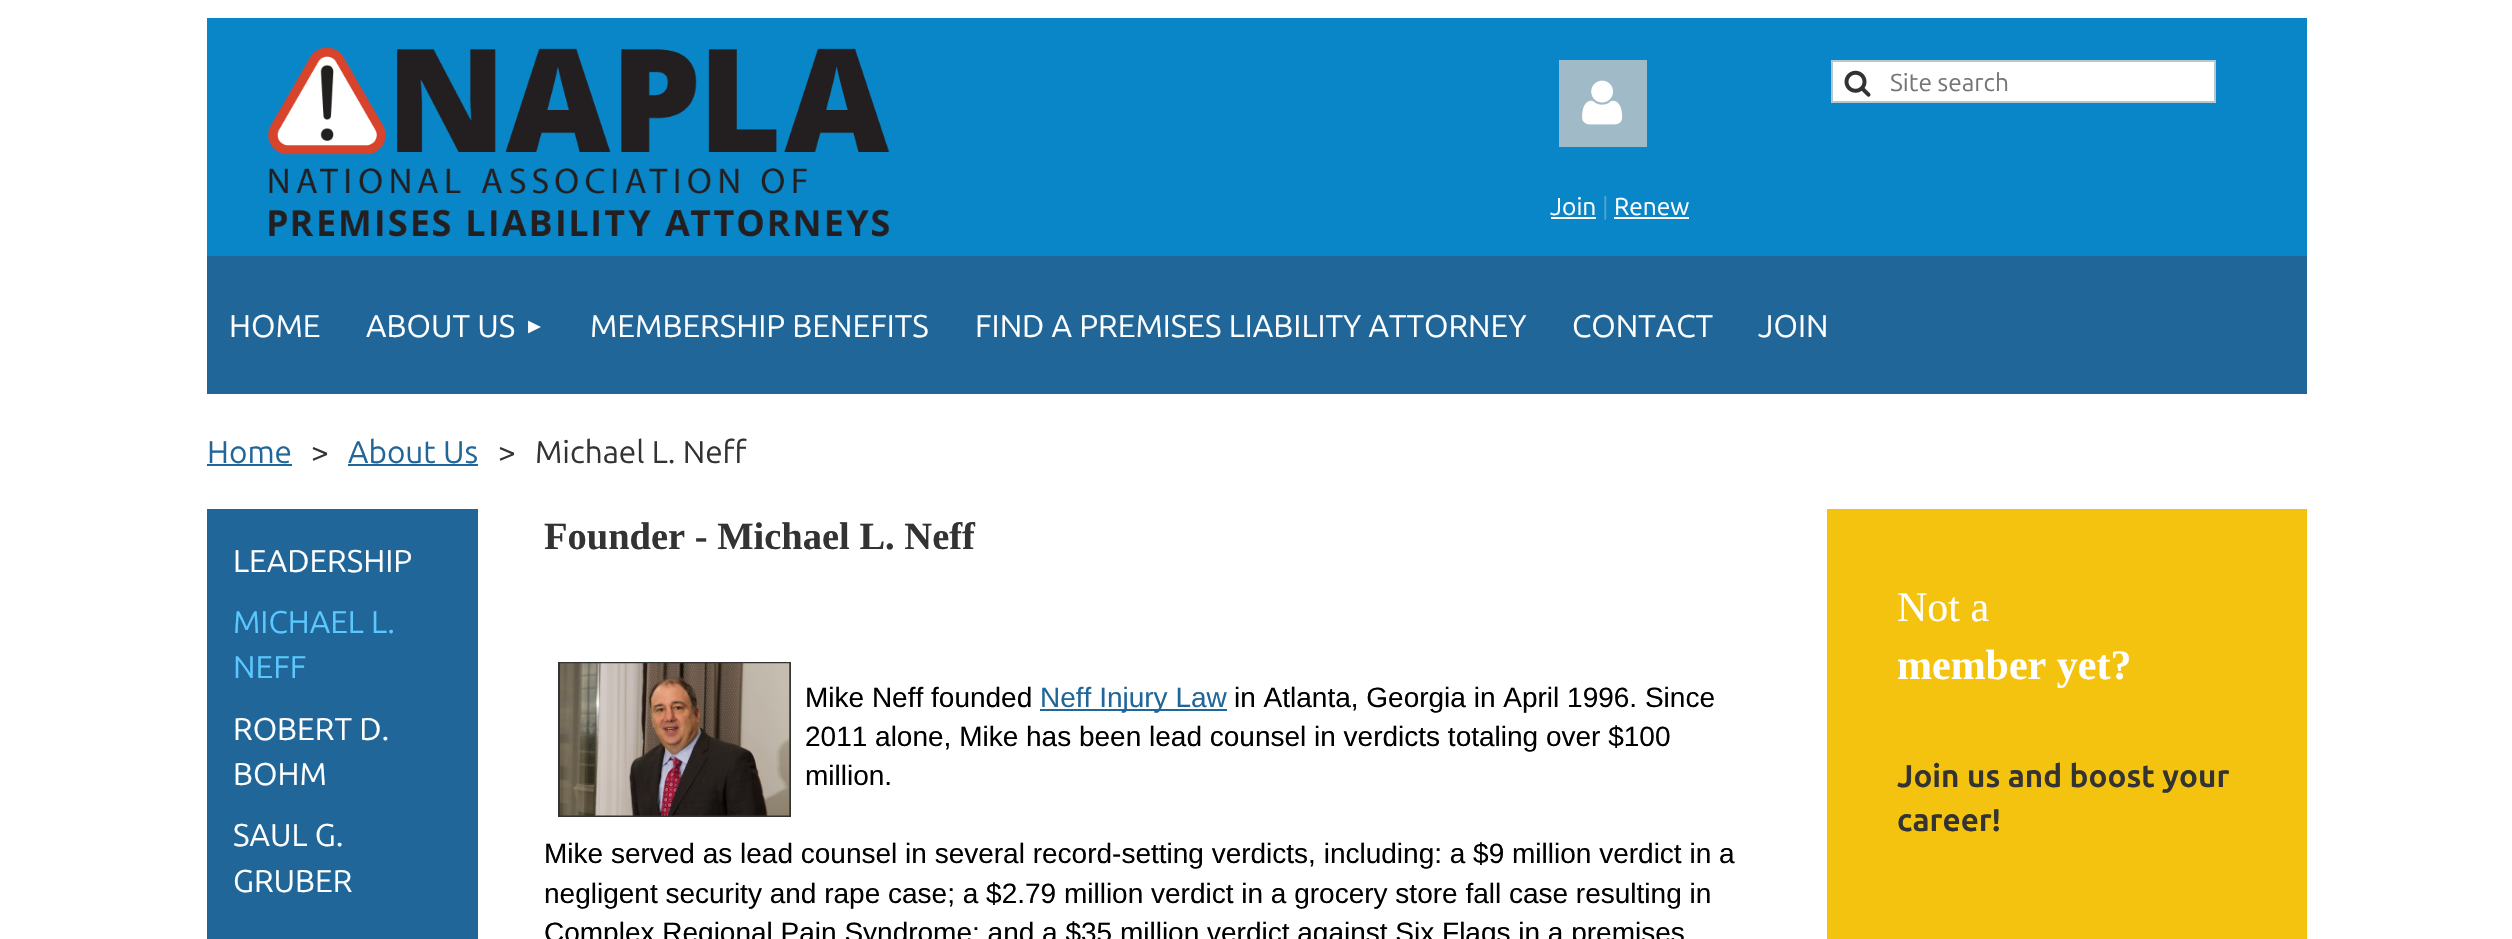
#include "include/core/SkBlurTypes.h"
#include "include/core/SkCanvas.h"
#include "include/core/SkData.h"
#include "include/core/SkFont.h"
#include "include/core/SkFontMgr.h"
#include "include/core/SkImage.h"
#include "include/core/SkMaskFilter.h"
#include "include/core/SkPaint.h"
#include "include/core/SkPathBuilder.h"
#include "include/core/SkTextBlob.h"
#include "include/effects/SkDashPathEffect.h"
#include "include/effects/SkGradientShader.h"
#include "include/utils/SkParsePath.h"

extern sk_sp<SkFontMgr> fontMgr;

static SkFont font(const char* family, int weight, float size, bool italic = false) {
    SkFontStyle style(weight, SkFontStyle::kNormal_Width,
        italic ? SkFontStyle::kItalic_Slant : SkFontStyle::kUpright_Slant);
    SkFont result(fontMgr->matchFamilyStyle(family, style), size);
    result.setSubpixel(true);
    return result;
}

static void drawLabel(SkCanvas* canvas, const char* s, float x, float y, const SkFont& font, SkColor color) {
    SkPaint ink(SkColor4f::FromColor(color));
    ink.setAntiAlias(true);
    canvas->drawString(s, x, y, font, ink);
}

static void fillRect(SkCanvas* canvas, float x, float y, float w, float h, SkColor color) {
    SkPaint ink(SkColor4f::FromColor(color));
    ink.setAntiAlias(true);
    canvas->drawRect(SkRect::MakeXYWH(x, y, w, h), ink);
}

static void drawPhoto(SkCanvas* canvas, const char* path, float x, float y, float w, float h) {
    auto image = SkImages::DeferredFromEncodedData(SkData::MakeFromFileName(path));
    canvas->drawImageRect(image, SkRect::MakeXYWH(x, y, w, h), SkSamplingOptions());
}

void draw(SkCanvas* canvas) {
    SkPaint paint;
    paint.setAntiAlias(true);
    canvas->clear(0xFFFFFFFF);
    fillRect(canvas, 207, 18, 2100, 238, 0xFF0986C7);
    drawPhoto(canvas, "assets/img1.png", 268, 47, 622, 190);
    paint.setColor(0xFFFFFFFF);
    canvas->drawRect(SkRect::MakeXYWH(1832, 61, 383, 41), paint);
    paint.setStroke(true);
    paint.setStrokeWidth(2);
    paint.setColor(0xFFB8C6CD);
    canvas->drawRect(SkRect::MakeXYWH(1832, 61, 383, 41), paint);
    drawPhoto(canvas, "assets/img2.png", 1844, 70, 27, 27);
    SkFont font1 = font("Ubuntu", 400, 24.5f);
    drawLabel(canvas, "Site search", 1890, 91, font1, 0xFF757575);
    fillRect(canvas, 1559, 60, 88, 87, 0xFFA0BAC7);
    drawPhoto(canvas, "assets/img3.png", 1582, 80, 41, 45);
    drawLabel(canvas, "Join", 1550, 215, font1, 0xFFFFFFFF);
    fillRect(canvas, 1551, 217, 45, 2, 0xFFFFFFFF);
    drawLabel(canvas, "|", 1602, 215, font1, 0xFF599FD2);
    drawLabel(canvas, "Renew", 1614, 215, font1, 0xFFFFFFFF);
    fillRect(canvas, 1614, 217, 75, 2, 0xFFFFFFFF);
    fillRect(canvas, 207, 256, 2100, 138, 0xFF206699);
    SkFont font2 = font("Ubuntu", 400, 31.5f);
    drawLabel(canvas, "HOME", 229, 337, font2, 0xFFFFFFFF);
    drawLabel(canvas, "ABOUT US", 366, 337, font2, 0xFFFFFFFF);
    SkFont font3 = font("Liberation Sans", 400, 21);
    drawLabel(canvas, "►", 524, 333, font3, 0xFFFFFFFF);
    drawLabel(canvas, "MEMBERSHIP BENEFITS", 590, 337, font2, 0xFFFFFFFF);
    drawLabel(canvas, "FIND A PREMISES LIABILITY ATTORNEY", 975, 337, font2, 0xFFFFFFFF);
    drawLabel(canvas, "CONTACT", 1572, 337, font2, 0xFFFFFFFF);
    drawLabel(canvas, "JOIN", 1758, 337, font2, 0xFFFFFFFF);
    drawLabel(canvas, "Home", 207, 463, font2, 0xFF206699);
    fillRect(canvas, 207, 464, 85, 2, 0xFF206699);
    drawLabel(canvas, ">", 311, 463, font2, 0xFF333333);
    drawLabel(canvas, "About Us", 348, 463, font2, 0xFF206699);
    fillRect(canvas, 348, 464, 130, 2, 0xFF206699);
    drawLabel(canvas, ">", 498, 463, font2, 0xFF333333);
    drawLabel(canvas, "Michael L. Neff", 535, 463, font2, 0xFF333333);
    fillRect(canvas, 207, 509, 271, 430, 0xFF206699);
    drawLabel(canvas, "LEADERSHIP", 233, 572, font2, 0xFFFFFFFF);
    drawLabel(canvas, "MICHAEL L.", 233, 633, font2, 0xFF5BC7FF);
    drawLabel(canvas, "NEFF", 233, 678, font2, 0xFF5BC7FF);
    drawLabel(canvas, "ROBERT D.", 233, 740, font2, 0xFFFFFFFF);
    drawLabel(canvas, "BOHM", 233, 785, font2, 0xFFFFFFFF);
    drawLabel(canvas, "SAUL G.", 233, 846, font2, 0xFFFFFFFF);
    drawLabel(canvas, "GRUBER", 233, 892, font2, 0xFFFFFFFF);
    SkFont font4 = font("Liberation Serif", 700, 38.5f);
    drawLabel(canvas, "Founder - Michael L. Neff", 544, 549, font4, 0xFF333333);
    paint.setColor(0xFF333333);
    canvas->drawRect(SkRect::MakeXYWH(559, 663, 231, 153), paint);
    drawPhoto(canvas, "assets/img4.png", 560, 663, 230, 153);
    SkFont font5 = font("Liberation Sans", 400, 28);
    drawLabel(canvas, "Mike Neff founded", 805, 707, font5, 0xFF000000);
    fillRect(canvas, 1040, 709, 187, 2, 0xFF206699);
    drawLabel(canvas, "Neff Injury Law", 1040, 707, font5, 0xFF206699);
    drawLabel(canvas, "in Atlanta, Georgia in April 1996. Since", 1234, 707, font5, 0xFF000000);
    drawLabel(canvas, "2011 alone, Mike has been lead counsel in verdicts totaling over $100", 805, 746, font5, 0xFF000000);
    drawLabel(canvas, "million.", 805, 785, font5, 0xFF000000);
    drawLabel(canvas, "Mike served as lead counsel in several record-setting verdicts, including: a $9 million verdict in a", 544, 863, font5, 0xFF000000);
    drawLabel(canvas, "negligent security and rape case; a $2.79 million verdict in a grocery store fall case resulting in", 544, 903, font5, 0xFF000000);
    drawLabel(canvas, "Complex Regional Pain Syndrome; and a $35 million verdict against Six Flags in a premises", 544, 942, font5, 0xFF000000);
    fillRect(canvas, 1827, 509, 480, 430, 0xFFF4C30F);
    SkFont font6 = font("Liberation Serif", 400, 42);
    drawLabel(canvas, "Not a", 1897, 621, font6, 0xFFFFFFFF);
    SkFont font7 = font("Liberation Serif", 700, 42);
    drawLabel(canvas, "member yet?", 1897, 679, font7, 0xFFFFFFFF);
    SkFont font8 = font("Ubuntu", 700, 31.5f);
    drawLabel(canvas, "Join us and boost your", 1897, 787, font8, 0xFF333333);
    drawLabel(canvas, "career!", 1897, 831, font8, 0xFF333333);
}
